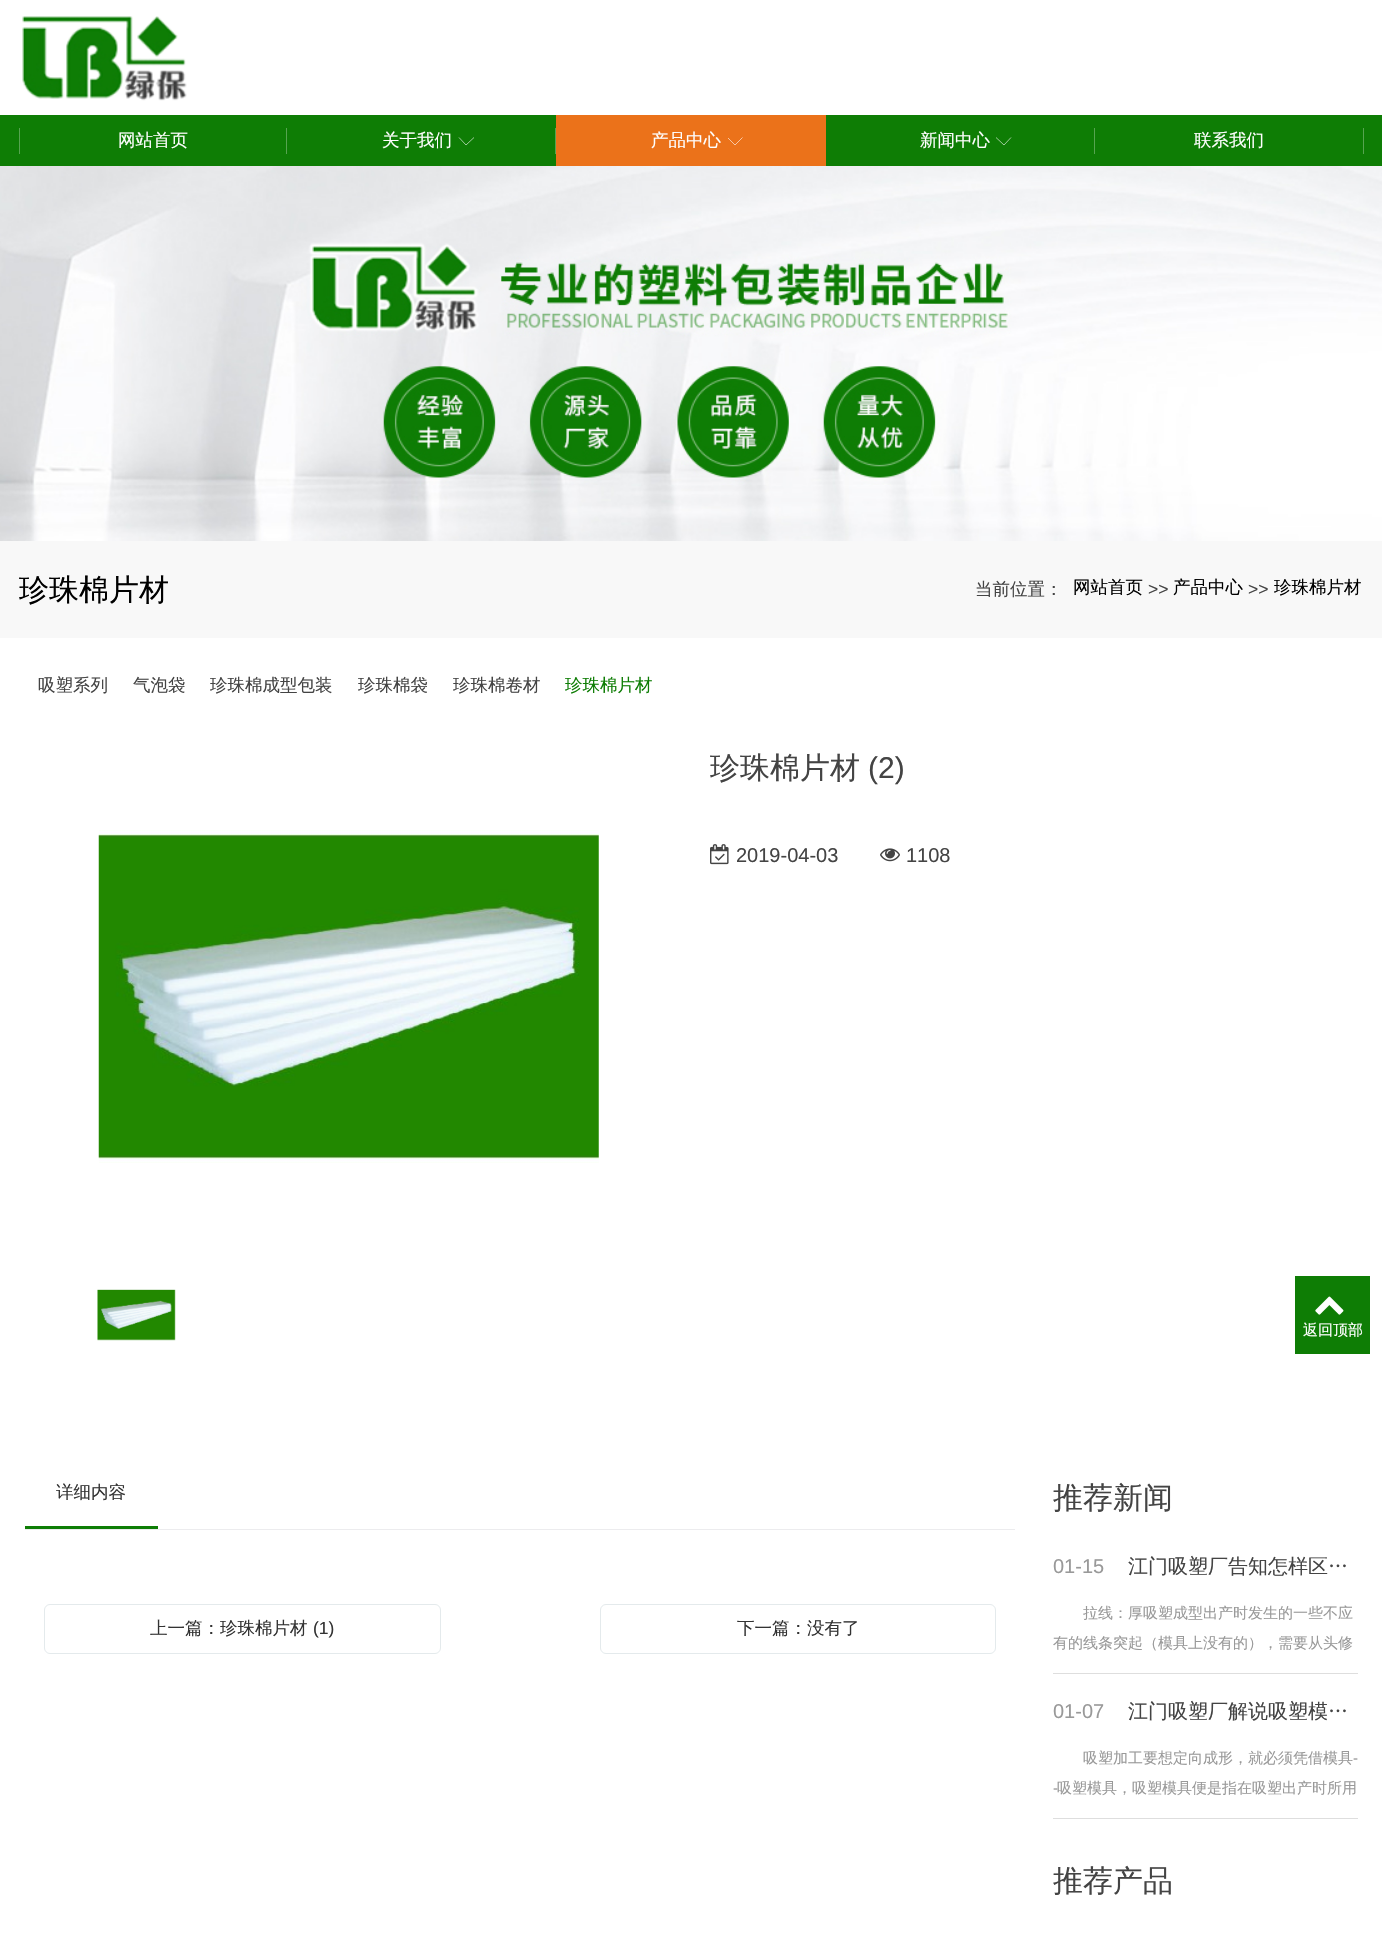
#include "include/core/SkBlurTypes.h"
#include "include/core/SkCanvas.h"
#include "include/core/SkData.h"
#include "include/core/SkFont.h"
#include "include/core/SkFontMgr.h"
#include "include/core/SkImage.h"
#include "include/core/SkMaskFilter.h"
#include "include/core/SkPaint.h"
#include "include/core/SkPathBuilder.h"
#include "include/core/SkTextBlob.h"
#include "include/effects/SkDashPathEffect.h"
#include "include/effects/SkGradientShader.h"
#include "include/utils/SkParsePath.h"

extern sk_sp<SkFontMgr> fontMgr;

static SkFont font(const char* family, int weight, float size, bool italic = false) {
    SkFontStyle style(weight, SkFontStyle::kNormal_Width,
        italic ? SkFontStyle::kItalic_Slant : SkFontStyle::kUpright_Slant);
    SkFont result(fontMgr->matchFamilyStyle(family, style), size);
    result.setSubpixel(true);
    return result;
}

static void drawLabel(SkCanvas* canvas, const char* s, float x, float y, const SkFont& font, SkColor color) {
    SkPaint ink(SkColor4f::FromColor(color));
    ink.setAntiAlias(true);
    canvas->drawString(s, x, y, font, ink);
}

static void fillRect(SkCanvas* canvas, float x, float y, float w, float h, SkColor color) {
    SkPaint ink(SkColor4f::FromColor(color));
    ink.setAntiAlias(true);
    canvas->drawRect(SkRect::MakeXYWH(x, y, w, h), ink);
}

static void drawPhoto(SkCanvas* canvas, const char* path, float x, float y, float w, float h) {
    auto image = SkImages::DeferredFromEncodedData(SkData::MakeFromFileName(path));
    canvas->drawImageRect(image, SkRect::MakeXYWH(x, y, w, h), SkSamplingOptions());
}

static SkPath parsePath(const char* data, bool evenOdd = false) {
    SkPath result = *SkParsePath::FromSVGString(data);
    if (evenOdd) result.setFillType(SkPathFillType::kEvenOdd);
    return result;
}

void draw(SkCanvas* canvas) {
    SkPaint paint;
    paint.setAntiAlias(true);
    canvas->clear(0xFFFFFFFF);
    drawPhoto(canvas, "assets/img1.png", 22, 16, 165, 85);
    fillRect(canvas, 0, 115, 1382, 51, 0xFF0E7D05);
    fillRect(canvas, 19, 128, 1, 26, 0xFF56A450);
    fillRect(canvas, 286, 128, 1, 26, 0xFF56A450);
    SkFont font1 = font("WenQuanYi Zen Hei", 500, 17.5f);
    drawLabel(canvas, "网站首页", 118, 146, font1, 0xFFFFFFFF);
    fillRect(canvas, 555, 128, 1, 26, 0xFF56A450);
    drawLabel(canvas, "关于我们", 382, 146, font1, 0xFFFFFFFF);
    paint.setStroke(true);
    paint.setStrokeWidth(0.6f);
    paint.setColor(0xFFFFFFFF);
    canvas->drawPath(parsePath("M459 137.5L466 145M474 137.5L466 145"), paint);
    fillRect(canvas, 556, 115, 270, 51, 0xFFEB721A);
    drawLabel(canvas, "产品中心", 651, 146, font1, 0xFFFFFFFF);
    canvas->save();
    canvas->clipRect(SkRect::MakeXYWH(728, 138, 15, 7));
    canvas->drawPath(parsePath("M727.5 137.5L735 145"), paint);
    canvas->restore();
    canvas->drawPath(parsePath("M742.5 137.5L735 145"), paint);
    fillRect(canvas, 1094, 128, 1, 26, 0xFF56A450);
    drawLabel(canvas, "新闻中心", 920, 146, font1, 0xFFFFFFFF);
    canvas->drawPath(parsePath("M996 137.5L1004 145M1011 137.5L1004 145"), paint);
    fillRect(canvas, 1363, 128, 1, 26, 0xFF56A450);
    drawLabel(canvas, "联系我们", 1194, 146, font1, 0xFFFFFFFF);
    drawPhoto(canvas, "assets/img2.png", 0, 166, 1382, 375);
    fillRect(canvas, 0, 541, 1382, 97, 0xFFF8F8F8);
    SkFont font2 = font("WenQuanYi Zen Hei", 500, 30);
    drawLabel(canvas, "珍珠棉片材", 19, 600, font2, 0xFF000000);
    drawLabel(canvas, "当前位置：", 975, 595, font1, 0xFF444444);
    drawLabel(canvas, "网站首页", 1073, 593, font1, 0xFF000000);
    SkFont font3 = font("Liberation Sans", 400, 17.5f);
    drawLabel(canvas, ">>", 1148, 595, font3, 0xFF444444);
    drawLabel(canvas, "产品中心", 1173, 593, font1, 0xFF000000);
    drawLabel(canvas, ">>", 1248, 595, font3, 0xFF444444);
    drawLabel(canvas, "珍珠棉片材", 1274, 593, font1, 0xFF000000);
    drawLabel(canvas, "吸塑系列", 38, 691, font1, 0xFF444444);
    drawLabel(canvas, "气泡袋", 133, 691, font1, 0xFF444444);
    drawLabel(canvas, "珍珠棉成型包装", 210, 691, font1, 0xFF444444);
    drawLabel(canvas, "珍珠棉袋", 358, 691, font1, 0xFF444444);
    drawLabel(canvas, "珍珠棉卷材", 453, 691, font1, 0xFF444444);
    drawLabel(canvas, "珍珠棉片材", 565, 691, font1, 0xFF0E7D05);
    drawLabel(canvas, "珍珠棉片材", 710, 778, font2, 0xFF444444);
    SkFont font4 = font("Liberation Sans", 400, 30);
    drawLabel(canvas, "(2)", 868, 778, font4, 0xFF444444);
    drawPhoto(canvas, "assets/img3.png", 710, 844, 19, 21);
    SkFont font5 = font("Liberation Sans", 400, 20);
    drawLabel(canvas, "2019-04-03", 736, 862, font5, 0xFF444444);
    drawPhoto(canvas, "assets/img4.png", 880, 848, 20, 14);
    drawLabel(canvas, "1108", 906, 862, font5, 0xFF444444);
    drawPhoto(canvas, "assets/img5.png", 98, 830, 501, 333);
    drawPhoto(canvas, "assets/img6.png", 97, 1289, 79, 52);
    fillRect(canvas, 25, 1529, 990, 1, 0xFFECECEE);
    fillRect(canvas, 25, 1526, 133, 3, 0xFF0E7D05);
    drawLabel(canvas, "详细内容", 56, 1498, font1, 0xFF333333);
    paint.setStrokeWidth(1);
    paint.setColor(0xFFE4EAEC);
    canvas->drawRoundRect(SkRect::MakeXYWH(44.5f, 1604.5f, 396, 49), 5.5f, 5.5f, paint);
    drawLabel(canvas, "上一篇：珍珠棉片材", 150, 1634, font1, 0xFF333333);
    drawLabel(canvas, "(1)", 313, 1634, font3, 0xFF333333);
    canvas->drawRoundRect(SkRect::MakeXYWH(600.5f, 1604.5f, 395, 49), 5.5f, 5.5f, paint);
    drawLabel(canvas, "下一篇：没有了", 737, 1634, font1, 0xFF333333);
    drawLabel(canvas, "推荐新闻", 1053, 1508, font2, 0xFF444444);
    fillRect(canvas, 1053, 1673, 305, 1, 0xFFDEDEDE);
    drawLabel(canvas, "01-15", 1053, 1573, font5, 0xFF999999);
    SkFont font6 = font("WenQuanYi Zen Hei", 500, 20);
    drawLabel(canvas, "江门吸塑厂告知怎样区…", 1128, 1573, font6, 0xFF444444);
    SkFont font7 = font("WenQuanYi Zen Hei", 500, 15);
    drawLabel(canvas, "拉线：厚吸塑成型出产时发生的一些不应", 1083, 1618, font7, 0xFF999999);
    drawLabel(canvas, "有的线条突起（模具上没有的），需要从头修", 1053, 1648, font7, 0xFF999999);
    fillRect(canvas, 1053, 1818, 305, 1, 0xFFDEDEDE);
    drawLabel(canvas, "01-07", 1053, 1718, font5, 0xFF999999);
    drawLabel(canvas, "江门吸塑厂解说吸塑模…", 1128, 1718, font6, 0xFF444444);
    drawLabel(canvas, "吸塑加工要想定向成形，就必须凭借模具", 1083, 1763, font7, 0xFF999999);
    SkFont font8 = font("Liberation Sans", 400, 15);
    drawLabel(canvas, "-", 1353, 1763, font8, 0xFF999999);
    drawLabel(canvas, "-", 1053, 1793, font8, 0xFF999999);
    drawLabel(canvas, "吸塑模具，吸塑模具便是指在吸塑出产时所用", 1057, 1793, font7, 0xFF999999);
    drawLabel(canvas, "推荐产品", 1053, 1891, font2, 0xFF444444);
    fillRect(canvas, 1295, 1276, 75, 78, 0xFF0E7D05);
    drawPhoto(canvas, "assets/img7.png", 1315, 1296, 29, 19);
    drawLabel(canvas, "返回顶部", 1303, 1335, font7, 0xFFFFFFFF);
}
